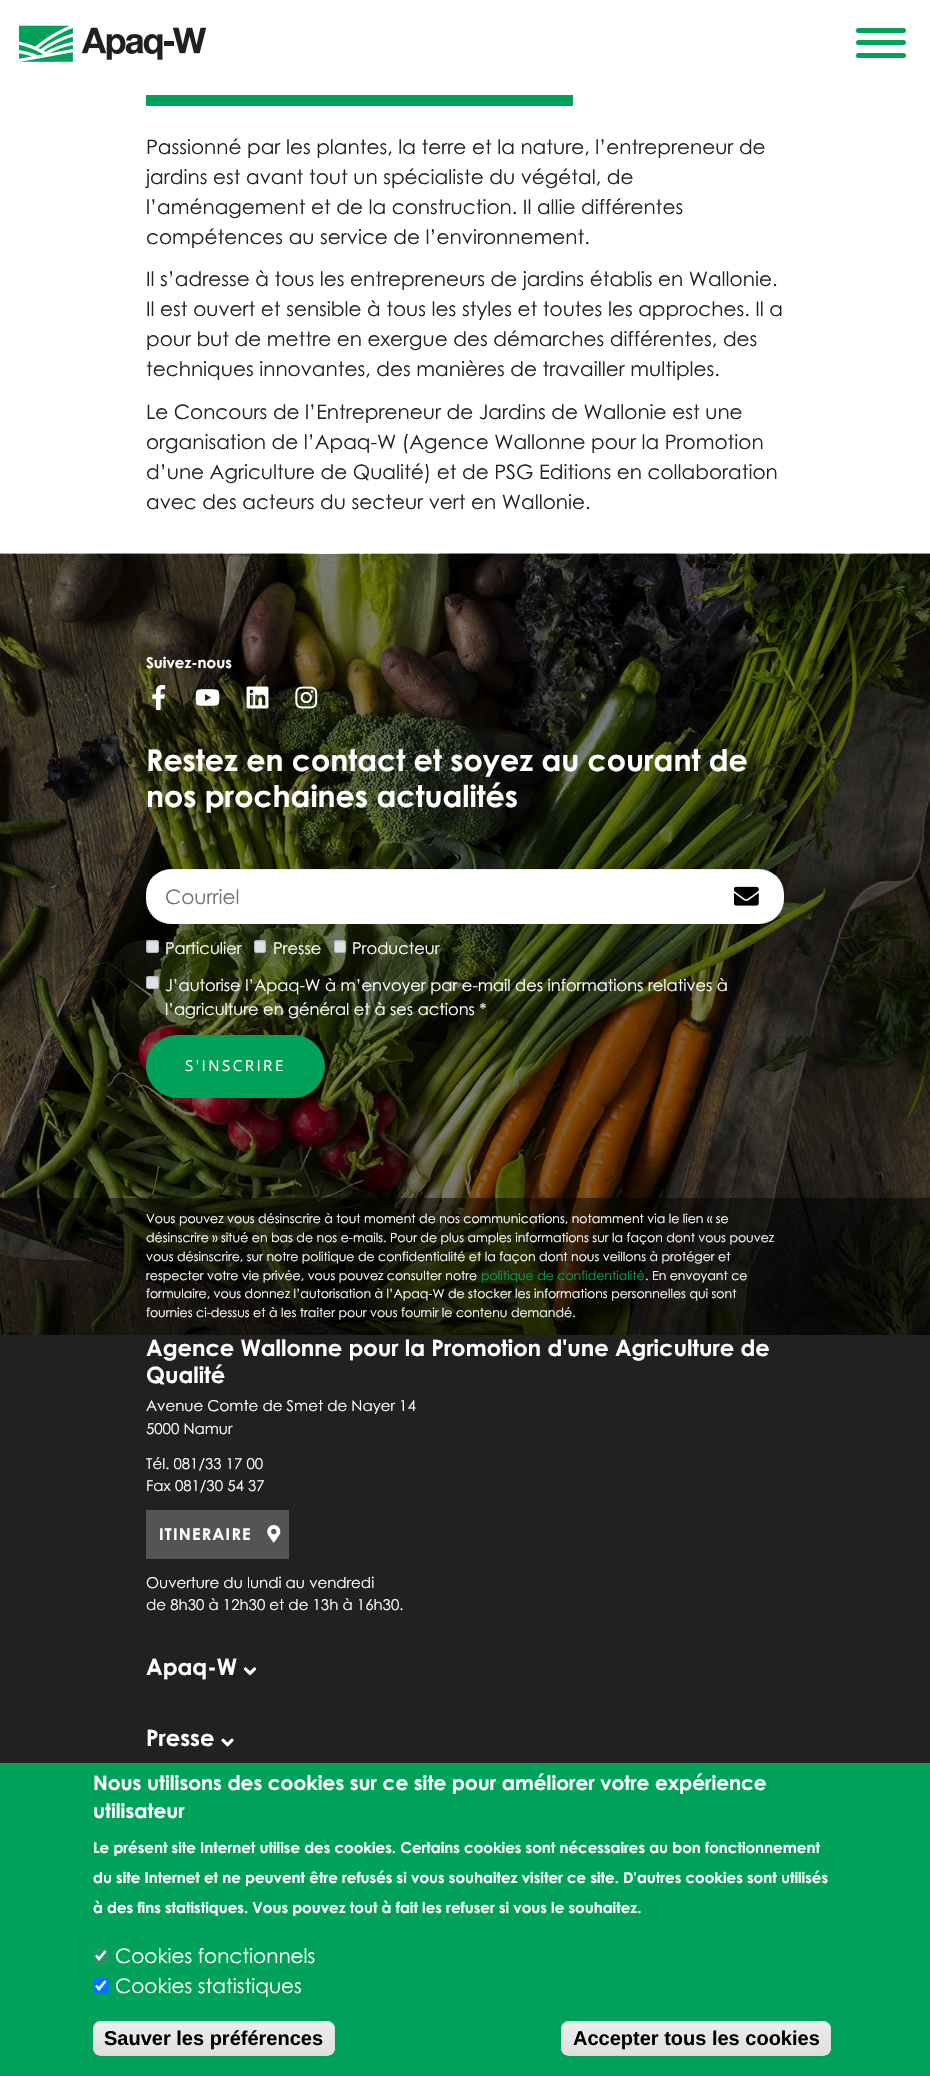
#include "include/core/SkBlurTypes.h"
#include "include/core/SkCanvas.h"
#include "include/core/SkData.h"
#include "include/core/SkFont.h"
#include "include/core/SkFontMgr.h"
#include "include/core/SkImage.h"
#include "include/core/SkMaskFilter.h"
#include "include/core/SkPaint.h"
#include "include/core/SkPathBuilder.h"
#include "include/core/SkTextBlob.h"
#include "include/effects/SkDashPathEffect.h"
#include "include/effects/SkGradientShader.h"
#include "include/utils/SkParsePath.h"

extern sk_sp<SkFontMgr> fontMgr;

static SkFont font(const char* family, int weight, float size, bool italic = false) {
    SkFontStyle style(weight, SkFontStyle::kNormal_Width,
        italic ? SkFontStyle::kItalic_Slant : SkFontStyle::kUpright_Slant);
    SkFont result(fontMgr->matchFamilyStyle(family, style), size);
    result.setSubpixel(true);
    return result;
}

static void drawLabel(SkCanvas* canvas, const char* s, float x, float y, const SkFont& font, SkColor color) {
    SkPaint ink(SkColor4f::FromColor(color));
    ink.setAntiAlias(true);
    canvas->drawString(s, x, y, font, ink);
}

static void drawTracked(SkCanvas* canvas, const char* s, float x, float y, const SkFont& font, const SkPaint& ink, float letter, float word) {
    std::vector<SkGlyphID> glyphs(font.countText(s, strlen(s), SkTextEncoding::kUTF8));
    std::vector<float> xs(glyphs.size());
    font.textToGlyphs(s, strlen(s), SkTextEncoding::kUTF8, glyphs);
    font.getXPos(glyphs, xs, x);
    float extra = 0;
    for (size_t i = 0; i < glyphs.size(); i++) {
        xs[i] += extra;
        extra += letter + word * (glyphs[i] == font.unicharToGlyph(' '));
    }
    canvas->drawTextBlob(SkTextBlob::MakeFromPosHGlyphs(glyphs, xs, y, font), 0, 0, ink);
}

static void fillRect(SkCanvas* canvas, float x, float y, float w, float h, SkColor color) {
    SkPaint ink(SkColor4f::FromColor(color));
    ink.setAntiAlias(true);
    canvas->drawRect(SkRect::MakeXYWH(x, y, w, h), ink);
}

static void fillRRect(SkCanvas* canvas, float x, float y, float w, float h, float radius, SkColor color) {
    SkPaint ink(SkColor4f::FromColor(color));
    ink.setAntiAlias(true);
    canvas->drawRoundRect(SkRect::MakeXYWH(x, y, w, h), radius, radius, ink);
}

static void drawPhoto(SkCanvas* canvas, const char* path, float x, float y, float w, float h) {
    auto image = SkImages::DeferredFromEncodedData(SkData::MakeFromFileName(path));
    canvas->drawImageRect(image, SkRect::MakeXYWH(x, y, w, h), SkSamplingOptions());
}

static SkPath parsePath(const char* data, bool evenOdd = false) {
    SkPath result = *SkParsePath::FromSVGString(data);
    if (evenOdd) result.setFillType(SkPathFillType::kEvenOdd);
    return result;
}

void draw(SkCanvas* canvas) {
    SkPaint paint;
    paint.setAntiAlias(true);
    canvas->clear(0xFFFFFFFF);
    drawPhoto(canvas, "assets/img1.png", 19, 25, 187, 37);
    fillRRect(canvas, 856, 28, 50, 5, 2.5f, 0xFF00A259);
    fillRRect(canvas, 856, 40, 50, 5, 2.5f, 0xFF00A259);
    fillRRect(canvas, 856, 53, 50, 5, 2.5f, 0xFF00A259);
    fillRect(canvas, 146, 95, 427, 11, 0xFF00A259);
    SkFont font1 = font("Century Gothic", 400, 20);
    drawLabel(canvas, "Passionné par les plantes, la terre et la nature, l’entrepreneur de", 146, 154, font1, 0xFF212529);
    drawLabel(canvas, "jardins est avant tout un spécialiste du végétal, de", 146, 184, font1, 0xFF212529);
    drawLabel(canvas, "l’aménagement et de la construction. Il allie différentes", 146, 214, font1, 0xFF212529);
    drawLabel(canvas, "compétences au service de l’environnement.", 146, 244, font1, 0xFF212529);
    drawLabel(canvas, "Il s’adresse à tous les entrepreneurs de jardins établis en Wallonie.", 146, 286, font1, 0xFF212529);
    drawLabel(canvas, "Il est ouvert et sensible à tous les styles et toutes les approches. Il a", 146, 316, font1, 0xFF212529);
    drawLabel(canvas, "pour but de mettre en exergue des démarches différentes, des", 146, 346, font1, 0xFF212529);
    drawLabel(canvas, "techniques innovantes, des manières de travailler multiples.", 146, 376, font1, 0xFF212529);
    drawLabel(canvas, "Le Concours de l’Entrepreneur de Jardins de Wallonie est une", 146, 419, font1, 0xFF212529);
    drawLabel(canvas, "organisation de l’Apaq-W (Agence Wallonne pour la Promotion", 146, 449, font1, 0xFF212529);
    drawLabel(canvas, "d’une Agriculture de Qualité) et de PSG Editions en collaboration", 146, 479, font1, 0xFF212529);
    drawLabel(canvas, "avec des acteurs du secteur vert en Wallonie.", 146, 509, font1, 0xFF212529);
    fillRect(canvas, 0, 1334, 930, 429, 0xFF212121);
    drawPhoto(canvas, "assets/img2.png", 0, 553, 930, 782);
    SkFont font2 = font("Century Gothic", 700, 15);
    drawLabel(canvas, "Suivez-nous", 146, 668, font2, 0xFFFFFFFF);
    drawPhoto(canvas, "assets/img3.png", 152, 685, 14, 25);
    drawPhoto(canvas, "assets/img4.png", 195, 689, 25, 17);
    drawPhoto(canvas, "assets/img5.png", 246, 686, 23, 23);
    drawPhoto(canvas, "assets/img6.png", 295, 686, 23, 23);
    SkFont font3 = font("Century Gothic", 700, 30);
    drawLabel(canvas, "Restez en contact et soyez au courant de", 146, 771, font3, 0xFFFFFFFF);
    drawLabel(canvas, "nos prochaines actualités", 146, 807, font3, 0xFFFFFFFF);
    fillRRect(canvas, 146, 869, 638, 55, 25, 0xFFFFFFFF);
    paint.setColor(0x12000000);
    canvas->drawPath(parsePath("M171 870H759C773 870 784 881 784 895V894C784 880 773 869 759 869H171C157 869 146 880 146 894V895C146 881 157 870 171 870Z"), paint);
    drawLabel(canvas, "Courriel", 165, 904, font1, 0xFF6C757D);
    drawPhoto(canvas, "assets/img7.png", 734, 886, 25, 20);
    fillRRect(canvas, 146, 940, 13, 13, 3, 0xFFDEE2E6);
    paint.setColor(0xFFCDD1D5);
    canvas->drawPath(parsePath("M149 942C155.5 942 158.5 941 158 949.5V945C158 940.5 157 941 153 941C151.5 941 148.5 940.5 148 942.5Z"), paint);
    paint.setStroke(true);
    paint.setStrokeWidth(1);
    paint.setColor(0xFFADB5BD);
    canvas->drawRoundRect(SkRect::MakeXYWH(146.5f, 940.5f, 12, 12), 2.5f, 2.5f, paint);
    SkFont font4 = font("Century Gothic", 400, 16.25f);
    drawLabel(canvas, "Particulier", 165, 954, font4, 0xFFFFFFFF);
    fillRRect(canvas, 254, 940, 12, 13, 3, 0xFFDEE2E6);
    paint.setStroke(false);
    paint.setColor(0xFFCDD1D5);
    canvas->drawPath(parsePath("M257 942C263.5 942 265.5 941.5 265 949.5V945C265 940.5 264 941 260 941C257.5 941 255 940.5 255 943.5C255 942.5 256 942 257 942Z"), paint);
    paint.setStroke(true);
    paint.setColor(0xFFADB5BD);
    canvas->drawRoundRect(SkRect::MakeXYWH(254.5f, 940.5f, 11, 12), 2.5f, 2.5f, paint);
    drawLabel(canvas, "Presse", 273, 954, font4, 0xFFFFFFFF);
    fillRRect(canvas, 334, 940, 12, 13, 3, 0xFFDEE2E6);
    paint.setStroke(false);
    paint.setColor(0xFFCDD1D5);
    canvas->drawPath(parsePath("M337 942C343.5 942 345.5 941.5 345 949.5V945C345 940.5 344 941 340 941C337.5 941 335 940.5 335 943.5C335 942.5 336 942 337 942Z"), paint);
    paint.setStroke(true);
    paint.setColor(0xFFADB5BD);
    canvas->drawRoundRect(SkRect::MakeXYWH(334.5f, 940.5f, 11, 12), 2.5f, 2.5f, paint);
    drawLabel(canvas, "Producteur", 352, 954, font4, 0xFFFFFFFF);
    fillRRect(canvas, 146, 976, 13, 13, 3, 0xFFDEE2E6);
    paint.setStroke(false);
    paint.setColor(0xFFCDD1D5);
    canvas->drawPath(parsePath("M149 979C152.5 979 157.5 977 158 982C158 983.5 158 985.5 157.5 987L158 986V980C158 979 157 978 156 978H150C149 978 148.5 978.5 148 979.5Z"), paint);
    paint.setStroke(true);
    paint.setColor(0xFFADB5BD);
    canvas->drawRoundRect(SkRect::MakeXYWH(146.5f, 976.5f, 12, 12), 2.5f, 2.5f, paint);
    drawLabel(canvas, "J’autorise l’Apaq-W à m’envoyer par e-mail des informations relatives à", 165, 991, font4, 0xFFFFFFFF);
    drawLabel(canvas, "l’agriculture en général et à ses actions *", 165, 1015, font4, 0xFFFFFFFF);
    paint.setStroke(false);
    paint.setColor(0xFF00A259);
    canvas->drawRoundRect(SkRect::MakeXYWH(146.5f, 1035.5f, 178, 62), 31, 31, paint);
    paint.setStroke(true);
    canvas->drawRoundRect(SkRect::MakeXYWH(146.5f, 1035.5f, 178, 62), 31, 31, paint);
    SkFont font5 = font("Open Sans", 400, 15);
    paint.setStroke(false);
    paint.setColor(0xFFFFFFFF);
    drawTracked(canvas, "S'INSCRIRE", 185, 1071, font5, paint, 2.5f, 0);
    fillRect(canvas, 0, 1198, 930, 137, 0x80000000);
    SkFont font6 = font("Century Gothic", 400, 12.5f);
    drawLabel(canvas, "Vous pouvez vous désinscrire à tout moment de nos communications, notamment via le lien « se", 146, 1223, font6, 0xFFFFFFFF);
    drawLabel(canvas, "désinscrire » situé en bas de nos e-mails. Pour de plus amples informations sur la façon dont vous pouvez", 146, 1242, font6, 0xFFFFFFFF);
    drawLabel(canvas, "vous désinscrire, sur notre politique de confidentialité et la façon dont nous veillons à protéger et", 146, 1261, font6, 0xFFFFFFFF);
    drawLabel(canvas, "respecter votre vie privée, vous pouvez consulter notre", 146, 1280, font6, 0xFFFFFFFF);
    drawLabel(canvas, "politique de confidentialité", 481, 1280, font6, 0xFF00A259);
    drawLabel(canvas, ". En envoyant ce", 645, 1280, font6, 0xFFFFFFFF);
    drawLabel(canvas, "formulaire, vous donnez l’autorisation à l’Apaq-W de stocker les informations personnelles qui sont", 146, 1298, font6, 0xFFFFFFFF);
    drawLabel(canvas, "fournies ci-dessus et à les traiter pour vous fournir le contenu demandé.", 146, 1317, font6, 0xFFFFFFFF);
    SkFont font7 = font("Century Gothic", 700, 22.5f);
    drawLabel(canvas, "Agence Wallonne pour la Promotion d'une Agriculture de", 146, 1356, font7, 0xFFFFFFFF);
    drawLabel(canvas, "Qualité", 146, 1383, font7, 0xFFFFFFFF);
    SkFont font8 = font("Century Gothic", 400, 15);
    drawLabel(canvas, "Avenue Comte de Smet de Nayer 14", 146, 1411, font8, 0xFFFFFFFF);
    drawLabel(canvas, "5000 Namur", 146, 1434, font8, 0xFFFFFFFF);
    drawLabel(canvas, "Tél. 081/33 17 00", 146, 1469, font8, 0xFFFFFFFF);
    drawLabel(canvas, "Fax 081/30 54 37", 146, 1491, font8, 0xFFFFFFFF);
    fillRect(canvas, 146, 1510, 143, 49, 0xFF545454);
    drawPhoto(canvas, "assets/img8.png", 267, 1525, 14, 18);
    SkFont font9 = font("Century Gothic", 700, 16.25f);
    drawTracked(canvas, "ITINERAIRE", 159, 1540, font9, paint, 1.25f, 0);
    drawLabel(canvas, "Ouverture du lundi au vendredi", 146, 1588, font8, 0xFFFFFFFF);
    drawLabel(canvas, "de 8h30 à 12h30 et de 13h à 16h30.", 146, 1610, font8, 0xFFFFFFFF);
    drawLabel(canvas, "Apaq-W", 146, 1675, font7, 0xFFFFFFFF);
    drawPhoto(canvas, "assets/img9.png", 244, 1667, 12, 9);
    drawLabel(canvas, "Presse", 146, 1746, font7, 0xFFFFFFFF);
    drawPhoto(canvas, "assets/img10.png", 221, 1738, 13, 9);
    fillRect(canvas, 0, 1763, 930, 313, 0xFF00A259);
    SkFont font10 = font("Century Gothic", 700, 20);
    drawLabel(canvas, "Nous utilisons des cookies sur ce site pour améliorer votre expérience", 93, 1790, font10, 0xFFFFFFFF);
    drawLabel(canvas, "utilisateur", 93, 1818, font10, 0xFFFFFFFF);
    drawLabel(canvas, "Le présent site Internet utilise des cookies. Certains cookies sont nécessaires au bon fonctionnement", 93, 1853, font2, 0xFFFFFFFF);
    drawLabel(canvas, "du site Internet et ne peuvent être refusés si vous souhaitez visiter ce site. D'autres cookies sont utilisés", 93, 1883, font2, 0xFFFFFFFF);
    drawLabel(canvas, "à des fins statistiques. Vous pouvez tout à fait les refuser si vous le souhaitez.", 93, 1913, font2, 0xFFFFFFFF);
    fillRRect(canvas, 93, 1948, 16, 16, 2.5f, 0xFF239562);
    paint.setStroke(true);
    paint.setStrokeWidth(2.6f);
    canvas->drawPath(parsePath("M96 1955.5L99 1959L105.5 1951"), paint);
    drawLabel(canvas, "Cookies fonctionnels", 115, 1963, font1, 0xFFFFFFFF);
    fillRRect(canvas, 93, 1978, 16, 16, 2.5f, 0xFF0075FF);
    canvas->drawPath(parsePath("M96 1985.5L99 1989L105.5 1981"), paint);
    drawLabel(canvas, "Cookies statistiques", 115, 1993, font1, 0xFFFFFFFF);
    canvas->save();
    canvas->clipPath(parsePath("M101 2021H327C331.5 2021 335 2024.5 335 2029V2048C335 2052.5 331.5 2056 327 2056H101C96.5 2056 93 2052.5 93 2048V2029C93 2024.5 96.5 2021 101 2021Z"), true);
    paint.setStroke(false);
    {
        const SkColor colors[] = {0xFFEDEDED, 0xFFDFDFDF};
        const float stops[] = {0.05f, 1};
        const SkPoint ends[] = {{214, 1990}, {214, 2023}};
        paint.setShader(SkGradientShader::MakeLinear(ends, colors, stops, 2, SkTileMode::kClamp));
        paint.setAlpha(255);
    }
    canvas->drawRect(SkRect::MakeXYWH(93, 2021, 242, 2), paint);
    {
        const SkColor colors[] = {0xFFEDEDED, 0xFFDFDFDF};
        const float stops[] = {0.05f, 1};
        const SkPoint ends[] = {{214, 2023}, {214, 2055}};
        paint.setShader(SkGradientShader::MakeLinear(ends, colors, stops, 2, SkTileMode::kClamp));
        paint.setAlpha(255);
    }
    canvas->drawRect(SkRect::MakeXYWH(93, 2023, 242, 32), paint);
    canvas->restore();
    paint.setShader(nullptr);
    paint.setColor(0xFFFFFFFF);
    canvas->drawPath(parsePath("M100 2024H328C331 2024 334 2027 334 2030V2029C334 2026 331 2023 328 2023H100C97 2023 94 2026 94 2029V2030C94 2027 97 2024 100 2024Z"), paint);
    paint.setStroke(true);
    paint.setStrokeWidth(1);
    paint.setColor(0xFFDCDCDC);
    canvas->drawRoundRect(SkRect::MakeXYWH(93.5f, 2021.5f, 241, 34), 7.5f, 7.5f, paint);
    SkFont font11 = font("Liberation Sans", 700, 20);
    drawLabel(canvas, "Sauver les préférences", 104, 2045, font11, 0xFF000000);
    canvas->save();
    canvas->clipPath(parsePath("M569 2021H823C827.5 2021 831 2024.5 831 2029V2048C831 2052.5 827.5 2056 823 2056H569C564.5 2056 561 2052.5 561 2048V2029C561 2024.5 564.5 2021 569 2021Z"), true);
    paint.setStroke(false);
    {
        const SkColor colors[] = {0xFFEDEDED, 0xFFDFDFDF};
        const float stops[] = {0.05f, 1};
        const SkPoint ends[] = {{696, 1990}, {696, 2023}};
        paint.setShader(SkGradientShader::MakeLinear(ends, colors, stops, 2, SkTileMode::kClamp));
        paint.setAlpha(255);
    }
    canvas->drawRect(SkRect::MakeXYWH(561, 2021, 270, 2), paint);
    {
        const SkColor colors[] = {0xFFEDEDED, 0xFFDFDFDF};
        const float stops[] = {0.05f, 1};
        const SkPoint ends[] = {{696, 2023}, {696, 2055}};
        paint.setShader(SkGradientShader::MakeLinear(ends, colors, stops, 2, SkTileMode::kClamp));
        paint.setAlpha(255);
    }
    canvas->drawRect(SkRect::MakeXYWH(561, 2023, 270, 32), paint);
    canvas->restore();
    paint.setShader(nullptr);
    paint.setColor(0xFFFFFFFF);
    canvas->drawPath(parsePath("M569 2024H824C827 2024 830 2027 830 2030V2029C830 2026 827 2023 824 2023H569C567 2023 565 2024 564 2026C565 2025 567 2024 569 2024Z"), paint);
    paint.setStroke(true);
    paint.setColor(0xFFDCDCDC);
    canvas->drawRoundRect(SkRect::MakeXYWH(561.5f, 2021.5f, 269, 34), 7.5f, 7.5f, paint);
    drawLabel(canvas, "Accepter tous les cookies", 573, 2045, font11, 0xFF000000);
}
